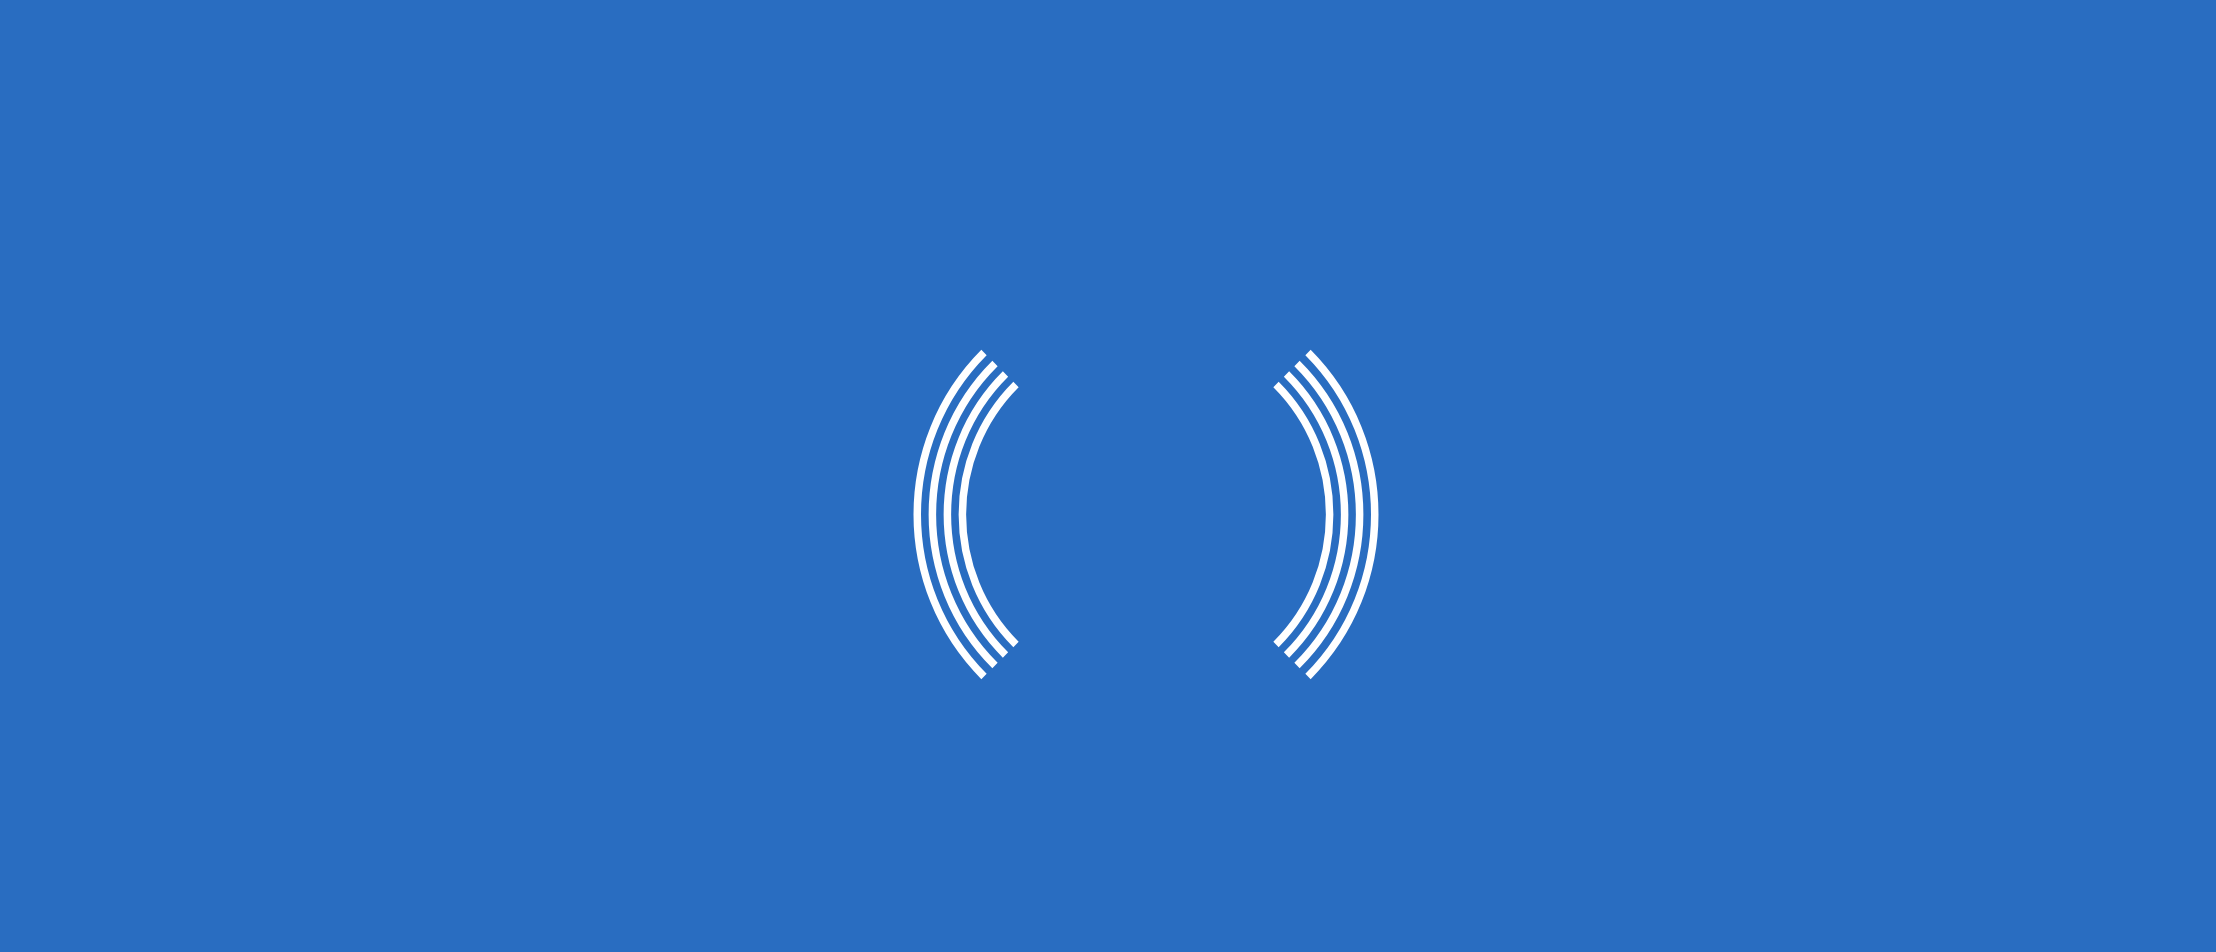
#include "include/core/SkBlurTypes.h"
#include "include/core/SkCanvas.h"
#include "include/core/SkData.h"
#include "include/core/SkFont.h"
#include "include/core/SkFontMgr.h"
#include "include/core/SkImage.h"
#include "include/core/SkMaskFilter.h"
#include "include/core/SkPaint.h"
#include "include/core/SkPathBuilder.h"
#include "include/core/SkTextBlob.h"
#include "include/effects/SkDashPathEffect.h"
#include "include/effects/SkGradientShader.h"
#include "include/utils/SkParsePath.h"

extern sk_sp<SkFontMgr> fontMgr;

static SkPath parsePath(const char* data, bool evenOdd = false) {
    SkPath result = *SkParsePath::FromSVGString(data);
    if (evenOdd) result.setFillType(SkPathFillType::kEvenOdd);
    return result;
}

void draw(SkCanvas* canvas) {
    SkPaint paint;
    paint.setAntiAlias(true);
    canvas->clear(0xFF296DC1);
    paint.setStroke(true);
    paint.setStrokeWidth(7.5f);
    paint.setColor(0xFFFFFFFF);
    canvas->drawPath(parsePath("M1308 352.5C1397 442 1397 587 1308 676.5"), paint);
    canvas->drawPath(parsePath("M984 676.5C895 587 895 442 984 352.5"), paint);
    canvas->drawPath(parsePath("M1297 363.5C1380.5 446.5 1380.5 582.5 1297 665.5"), paint);
    canvas->drawPath(parsePath("M995 665.5C911.5 582.5 911.5 446.5 995 363.5"), paint);
    canvas->drawPath(parsePath("M1286.5 374C1364 451 1364 578 1286.5 655"), paint);
    canvas->drawPath(parsePath("M1005.5 655C928 578 928 451 1005.5 374"), paint);
    canvas->drawPath(parsePath("M1276 384.5C1347.5 456 1347.5 573 1276 644.5"), paint);
    canvas->drawPath(parsePath("M1016 644.5C944.5 573 944.5 456 1016 384.5"), paint);
}
